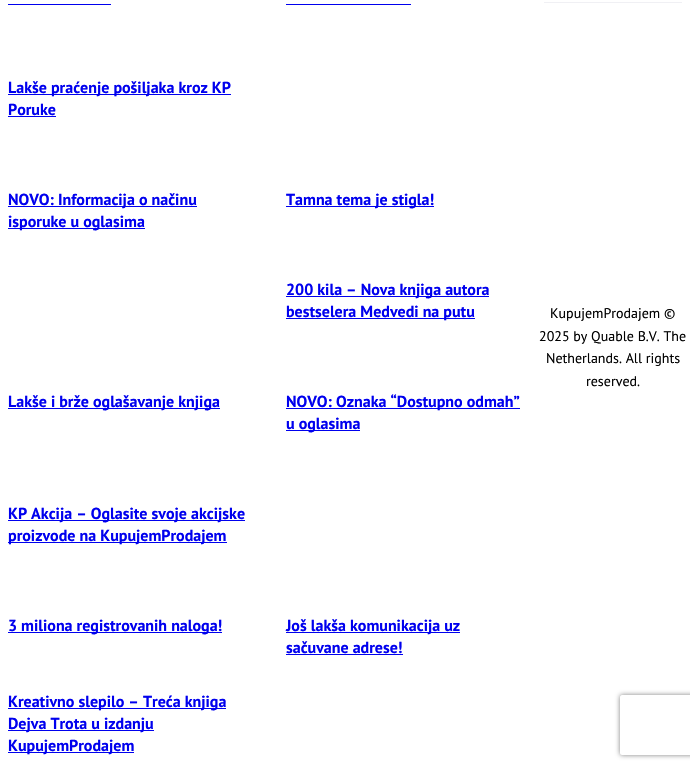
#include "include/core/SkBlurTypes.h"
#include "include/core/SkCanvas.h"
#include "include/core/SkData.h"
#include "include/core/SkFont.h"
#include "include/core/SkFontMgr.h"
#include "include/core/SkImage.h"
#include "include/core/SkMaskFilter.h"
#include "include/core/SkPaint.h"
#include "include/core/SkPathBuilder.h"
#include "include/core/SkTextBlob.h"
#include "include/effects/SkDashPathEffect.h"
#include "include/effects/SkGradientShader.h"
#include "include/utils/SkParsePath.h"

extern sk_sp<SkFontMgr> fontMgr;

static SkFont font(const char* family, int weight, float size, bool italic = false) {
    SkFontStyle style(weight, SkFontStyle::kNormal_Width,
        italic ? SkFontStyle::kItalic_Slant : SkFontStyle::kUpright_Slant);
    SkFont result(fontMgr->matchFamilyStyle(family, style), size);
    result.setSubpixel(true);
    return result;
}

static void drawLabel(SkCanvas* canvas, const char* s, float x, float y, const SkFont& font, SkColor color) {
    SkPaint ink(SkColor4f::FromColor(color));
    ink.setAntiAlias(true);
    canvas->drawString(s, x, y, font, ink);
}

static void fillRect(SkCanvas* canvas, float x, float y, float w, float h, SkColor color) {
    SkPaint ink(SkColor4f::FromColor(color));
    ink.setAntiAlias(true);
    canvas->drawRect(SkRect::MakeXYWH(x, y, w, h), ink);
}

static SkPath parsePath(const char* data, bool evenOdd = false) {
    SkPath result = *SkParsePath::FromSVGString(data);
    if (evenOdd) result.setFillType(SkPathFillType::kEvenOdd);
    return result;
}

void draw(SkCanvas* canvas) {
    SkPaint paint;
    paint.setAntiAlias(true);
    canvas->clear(0xFFFFFFFF);
    fillRect(canvas, 8, 4, 103, 1, 0xFF0000EE);
    fillRect(canvas, 286, 4, 125, 1, 0xFF0000EE);
    fillRect(canvas, 8, 94, 223, 1, 0xFF0000EE);
    SkFont font1 = font("PT Sans", 700, 16);
    drawLabel(canvas, "Lakše praćenje pošiljaka kroz KP", 8, 93, font1, 0xFF0000EE);
    drawLabel(canvas, "Poruke", 8, 115, font1, 0xFF0000EE);
    fillRect(canvas, 8, 116, 48, 1, 0xFF0000EE);
    fillRect(canvas, 8, 206, 189, 1, 0xFF0000EE);
    drawLabel(canvas, "NOVO: Informacija o načinu", 8, 205, font1, 0xFF0000EE);
    fillRect(canvas, 8, 228, 137, 1, 0xFF0000EE);
    drawLabel(canvas, "isporuke u oglasima", 8, 227, font1, 0xFF0000EE);
    fillRect(canvas, 286, 206, 148, 1, 0xFF0000EE);
    drawLabel(canvas, "Tamna tema je stigla!", 286, 205, font1, 0xFF0000EE);
    fillRect(canvas, 286, 296, 203, 1, 0xFF0000EE);
    drawLabel(canvas, "200 kila – Nova knjiga autora", 286, 295, font1, 0xFF0000EE);
    fillRect(canvas, 286, 318, 189, 1, 0xFF0000EE);
    drawLabel(canvas, "bestselera Medvedi na putu", 286, 317, font1, 0xFF0000EE);
    fillRect(canvas, 8, 408, 212, 1, 0xFF0000EE);
    drawLabel(canvas, "Lakše i brže oglašavanje knjiga", 8, 407, font1, 0xFF0000EE);
    fillRect(canvas, 286, 408, 234, 1, 0xFF0000EE);
    drawLabel(canvas, "NOVO: Oznaka “Dostupno odmah”", 286, 407, font1, 0xFF0000EE);
    fillRect(canvas, 286, 430, 74, 1, 0xFF0000EE);
    drawLabel(canvas, "u oglasima", 286, 429, font1, 0xFF0000EE);
    fillRect(canvas, 8, 520, 237, 1, 0xFF0000EE);
    drawLabel(canvas, "KP Akcija – Oglasite svoje akcijske", 8, 519, font1, 0xFF0000EE);
    fillRect(canvas, 8, 542, 219, 1, 0xFF0000EE);
    drawLabel(canvas, "proizvode na KupujemProdajem", 8, 541, font1, 0xFF0000EE);
    fillRect(canvas, 8, 632, 214, 1, 0xFF0000EE);
    drawLabel(canvas, "3 miliona registrovanih naloga!", 8, 631, font1, 0xFF0000EE);
    fillRect(canvas, 286, 632, 174, 1, 0xFF0000EE);
    drawLabel(canvas, "Još lakša komunikacija uz", 286, 631, font1, 0xFF0000EE);
    drawLabel(canvas, "sačuvane adrese!", 286, 653, font1, 0xFF0000EE);
    fillRect(canvas, 286, 654, 117, 1, 0xFF0000EE);
    fillRect(canvas, 8, 708, 218, 1, 0xFF0000EE);
    drawLabel(canvas, "Kreativno slepilo – Treća knjiga", 8, 707, font1, 0xFF0000EE);
    fillRect(canvas, 8, 730, 146, 1, 0xFF0000EE);
    drawLabel(canvas, "Dejva Trota u izdanju", 8, 729, font1, 0xFF0000EE);
    fillRect(canvas, 8, 752, 126, 1, 0xFF0000EE);
    drawLabel(canvas, "KupujemProdajem", 8, 751, font1, 0xFF0000EE);
    fillRect(canvas, 544, 2, 138, 1, 0xFFF0F0F4);
    SkFont font2 = font("PT Sans", 400, 14);
    drawLabel(canvas, "KupujemProdajem ©", 550, 318, font2, 0xFF000000);
    drawLabel(canvas, "2025 by Quable B.V. The", 539, 341, font2, 0xFF000000);
    drawLabel(canvas, "Netherlands. All rights", 546, 363, font2, 0xFF000000);
    drawLabel(canvas, "reserved.", 586, 386, font2, 0xFF000000);
    canvas->save();
    canvas->clipPath(parsePath("M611 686H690V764H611ZM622 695H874C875 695 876 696 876 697V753C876 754 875 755 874 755H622C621 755 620 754 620 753V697C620 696 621 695 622 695Z", true), true);
    paint.setColor(0xFF808080);
    paint.setMaskFilter(SkMaskFilter::MakeBlur(kNormal_SkBlurStyle, 2.5f));
    canvas->drawRoundRect(SkRect::MakeXYWH(620, 695, 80, 60), 2, 2, paint);
    paint.setMaskFilter(nullptr);
    canvas->restore();
}
